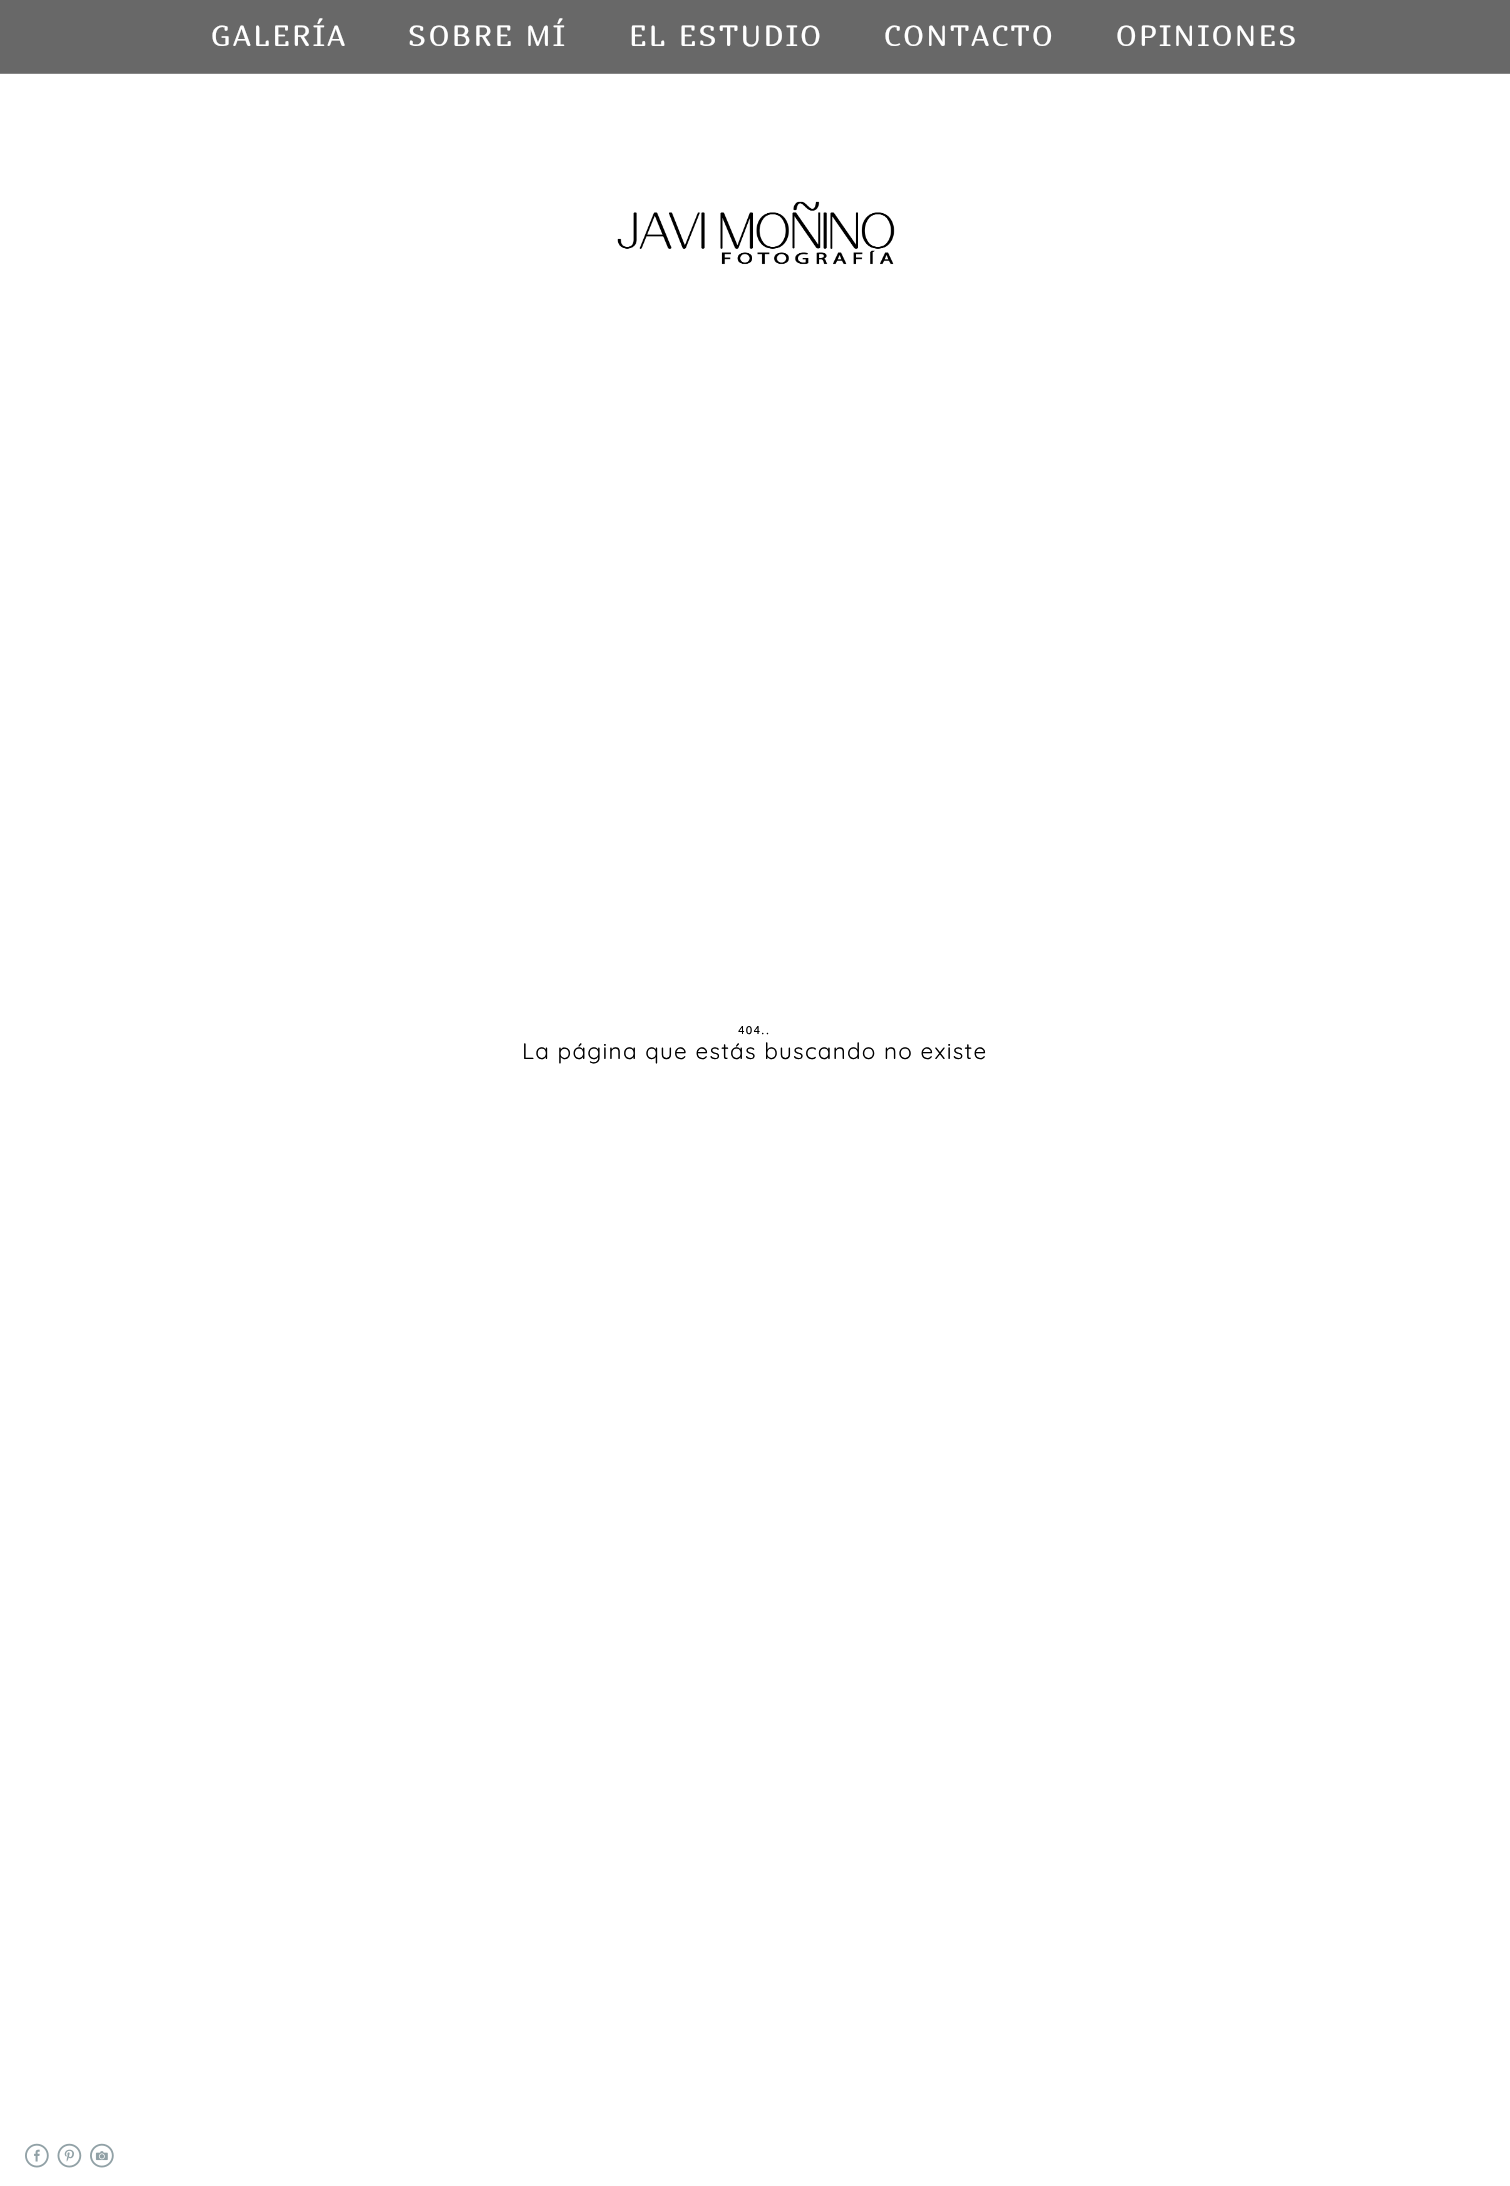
#include "include/core/SkBlurTypes.h"
#include "include/core/SkCanvas.h"
#include "include/core/SkData.h"
#include "include/core/SkFont.h"
#include "include/core/SkFontMgr.h"
#include "include/core/SkImage.h"
#include "include/core/SkMaskFilter.h"
#include "include/core/SkPaint.h"
#include "include/core/SkPathBuilder.h"
#include "include/core/SkTextBlob.h"
#include "include/effects/SkDashPathEffect.h"
#include "include/effects/SkGradientShader.h"
#include "include/utils/SkParsePath.h"

extern sk_sp<SkFontMgr> fontMgr;

static SkFont font(const char* family, int weight, float size, bool italic = false) {
    SkFontStyle style(weight, SkFontStyle::kNormal_Width,
        italic ? SkFontStyle::kItalic_Slant : SkFontStyle::kUpright_Slant);
    SkFont result(fontMgr->matchFamilyStyle(family, style), size);
    result.setSubpixel(true);
    return result;
}

static void drawTracked(SkCanvas* canvas, const char* s, float x, float y, const SkFont& font, const SkPaint& ink, float letter, float word) {
    std::vector<SkGlyphID> glyphs(font.countText(s, strlen(s), SkTextEncoding::kUTF8));
    std::vector<float> xs(glyphs.size());
    font.textToGlyphs(s, strlen(s), SkTextEncoding::kUTF8, glyphs);
    font.getXPos(glyphs, xs, x);
    float extra = 0;
    for (size_t i = 0; i < glyphs.size(); i++) {
        xs[i] += extra;
        extra += letter + word * (glyphs[i] == font.unicharToGlyph(' '));
    }
    canvas->drawTextBlob(SkTextBlob::MakeFromPosHGlyphs(glyphs, xs, y, font), 0, 0, ink);
}

static void fillRect(SkCanvas* canvas, float x, float y, float w, float h, SkColor color) {
    SkPaint ink(SkColor4f::FromColor(color));
    ink.setAntiAlias(true);
    canvas->drawRect(SkRect::MakeXYWH(x, y, w, h), ink);
}

static void drawPhoto(SkCanvas* canvas, const char* path, float x, float y, float w, float h) {
    auto image = SkImages::DeferredFromEncodedData(SkData::MakeFromFileName(path));
    canvas->drawImageRect(image, SkRect::MakeXYWH(x, y, w, h), SkSamplingOptions());
}

void draw(SkCanvas* canvas) {
    SkPaint paint;
    paint.setAntiAlias(true);
    canvas->clear(0xFFFFFFFF);
    fillRect(canvas, 0, 0, 1510, 73, 0xFF686868);
    fillRect(canvas, 0, 73, 1510, 1, 0xFF868686);
    SkFont font1 = font("Marmelad", 400, 28.75f);
    paint.setColor(0xFFFFFFFF);
    drawTracked(canvas, "GALERÍA", 211, 46, font1, paint, 2.5f, 0);
    drawTracked(canvas, "SOBRE MÍ", 408, 46, font1, paint, 2.5f, 0);
    drawTracked(canvas, "EL ESTUDIO", 629, 46, font1, paint, 2.5f, 0);
    drawTracked(canvas, "CONTACTO", 884, 46, font1, paint, 2.5f, 0);
    drawTracked(canvas, "OPINIONES", 1116, 46, font1, paint, 2.5f, 0);
    drawPhoto(canvas, "assets/img1.png", 617, 201, 278, 64);
    SkFont font2 = font("Andika", 400, 11);
    paint.setColor(0xFF000000);
    drawTracked(canvas, "404..", 738, 1034, font2, paint, 1.25f, 0);
    SkFont font3 = font("Quicksand", 400, 22.5f);
    drawTracked(canvas, "La página que estás buscando no existe", 522, 1059, font3, paint, 1.25f, 0);
    drawPhoto(canvas, "assets/img2.png", 25, 2143, 24, 25);
    drawPhoto(canvas, "assets/img3.png", 57, 2143, 25, 25);
    drawPhoto(canvas, "assets/img4.png", 90, 2143, 24, 25);
}
